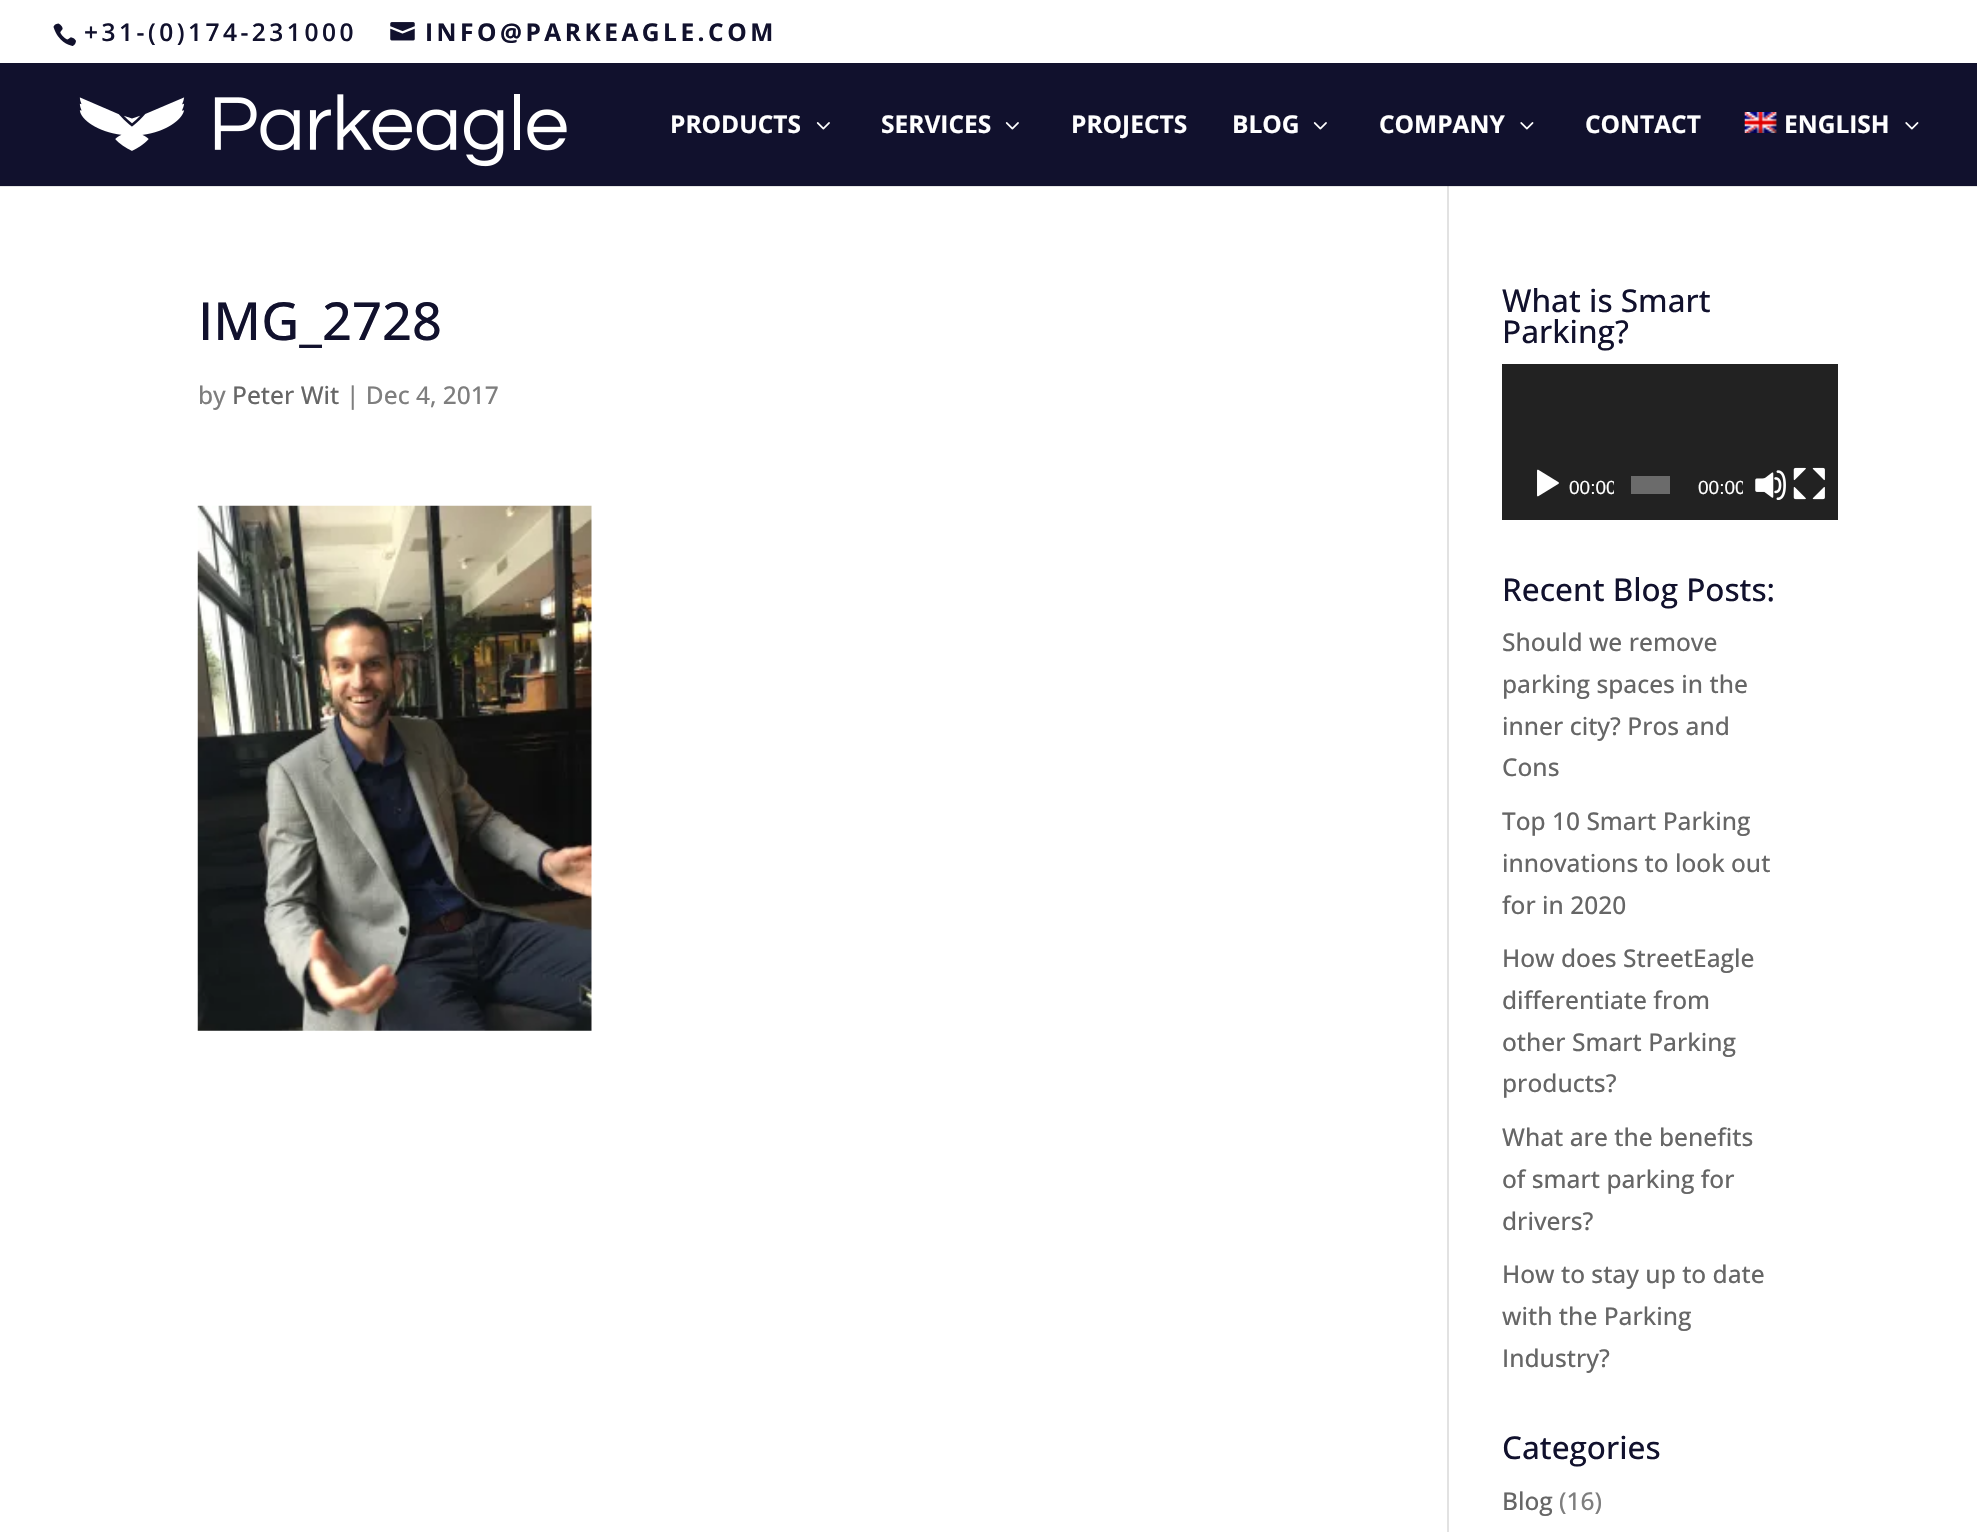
#include "include/core/SkBlurTypes.h"
#include "include/core/SkCanvas.h"
#include "include/core/SkData.h"
#include "include/core/SkFont.h"
#include "include/core/SkFontMgr.h"
#include "include/core/SkImage.h"
#include "include/core/SkMaskFilter.h"
#include "include/core/SkPaint.h"
#include "include/core/SkPathBuilder.h"
#include "include/core/SkTextBlob.h"
#include "include/effects/SkDashPathEffect.h"
#include "include/effects/SkGradientShader.h"
#include "include/utils/SkParsePath.h"

extern sk_sp<SkFontMgr> fontMgr;

static SkFont font(const char* family, int weight, float size, bool italic = false) {
    SkFontStyle style(weight, SkFontStyle::kNormal_Width,
        italic ? SkFontStyle::kItalic_Slant : SkFontStyle::kUpright_Slant);
    SkFont result(fontMgr->matchFamilyStyle(family, style), size);
    result.setSubpixel(true);
    return result;
}

static void drawLabel(SkCanvas* canvas, const char* s, float x, float y, const SkFont& font, SkColor color) {
    SkPaint ink(SkColor4f::FromColor(color));
    ink.setAntiAlias(true);
    canvas->drawString(s, x, y, font, ink);
}

static void drawTracked(SkCanvas* canvas, const char* s, float x, float y, const SkFont& font, const SkPaint& ink, float letter, float word) {
    std::vector<SkGlyphID> glyphs(font.countText(s, strlen(s), SkTextEncoding::kUTF8));
    std::vector<float> xs(glyphs.size());
    font.textToGlyphs(s, strlen(s), SkTextEncoding::kUTF8, glyphs);
    font.getXPos(glyphs, xs, x);
    float extra = 0;
    for (size_t i = 0; i < glyphs.size(); i++) {
        xs[i] += extra;
        extra += letter + word * (glyphs[i] == font.unicharToGlyph(' '));
    }
    canvas->drawTextBlob(SkTextBlob::MakeFromPosHGlyphs(glyphs, xs, y, font), 0, 0, ink);
}

static void fillRect(SkCanvas* canvas, float x, float y, float w, float h, SkColor color) {
    SkPaint ink(SkColor4f::FromColor(color));
    ink.setAntiAlias(true);
    canvas->drawRect(SkRect::MakeXYWH(x, y, w, h), ink);
}

static void drawPhoto(SkCanvas* canvas, const char* path, float x, float y, float w, float h) {
    auto image = SkImages::DeferredFromEncodedData(SkData::MakeFromFileName(path));
    canvas->drawImageRect(image, SkRect::MakeXYWH(x, y, w, h), SkSamplingOptions());
}

static SkPath parsePath(const char* data, bool evenOdd = false) {
    SkPath result = *SkParsePath::FromSVGString(data);
    if (evenOdd) result.setFillType(SkPathFillType::kEvenOdd);
    return result;
}

void draw(SkCanvas* canvas) {
    SkPaint paint;
    paint.setAntiAlias(true);
    canvas->clear(0xFFFFFFFF);
    drawPhoto(canvas, "assets/img1.png", 53, 23, 23, 23);
    SkFont font1 = font("Open Sans", 600, 24.5f);
    paint.setColor(0xFF11112D);
    drawTracked(canvas, "+31-(0)174-231000", 84, 41, font1, paint, 3.5f, 0);
    drawPhoto(canvas, "assets/img2.png", 390, 22, 25, 19);
    SkFont font2 = font("Open Sans", 700, 24.5f);
    drawTracked(canvas, "INFO@PARKEAGLE.COM", 425, 41, font2, paint, 3.5f, 0);
    fillRect(canvas, 1447, 182, 2, 1350, 0xFFE2E2E2);
    paint.setColor(0x1A000000);
    canvas->drawPath(parsePath("M0 186V187H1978V65V186Z"), paint);
    fillRect(canvas, 0, 63, 1977, 123, 0xFF11112D);
    drawPhoto(canvas, "assets/img3.png", 79, 94, 488, 73);
    drawLabel(canvas, "PRODUCTS", 670, 133, font2, 0xFFFFFFFF);
    drawPhoto(canvas, "assets/img4.png", 816, 122, 14, 8);
    drawLabel(canvas, "SERVICES", 881, 133, font2, 0xFFFFFFFF);
    drawPhoto(canvas, "assets/img4.png", 1005, 122, 14, 8);
    drawLabel(canvas, "PROJECTS", 1071, 133, font2, 0xFFFFFFFF);
    drawLabel(canvas, "BLOG", 1232, 133, font2, 0xFFFFFFFF);
    drawPhoto(canvas, "assets/img4.png", 1313, 122, 14, 8);
    drawLabel(canvas, "COMPANY", 1379, 133, font2, 0xFFFFFFFF);
    drawPhoto(canvas, "assets/img5.png", 1520, 122, 14, 8);
    drawLabel(canvas, "CONTACT", 1585, 133, font2, 0xFFFFFFFF);
    drawPhoto(canvas, "assets/img6.png", 1744, 112, 33, 21);
    drawLabel(canvas, "ENGLISH", 1784, 133, font2, 0xFFFFFFFF);
    drawPhoto(canvas, "assets/img5.png", 1905, 122, 14, 8);
    SkFont font3 = font("Open Sans", 500, 52.5f);
    drawLabel(canvas, "IMG_2728", 198, 340, font3, 0xFF11112D);
    SkFont font4 = font("Open Sans", 500, 24.5f);
    drawLabel(canvas, "by", 198, 404, font4, 0xFF7E7E7E);
    drawLabel(canvas, "Peter Wit", 232, 404, font4, 0xFF666666);
    drawLabel(canvas, "| Dec 4, 2017", 346, 404, font4, 0xFF7E7E7E);
    drawPhoto(canvas, "assets/img7.png", 197, 505, 395, 526);
    SkFont font5 = font("Open Sans", 500, 31.5f);
    drawLabel(canvas, "What is Smart", 1502, 312, font5, 0xFF11112D);
    drawLabel(canvas, "Parking?", 1502, 343, font5, 0xFF11112D);
    fillRect(canvas, 1502, 364, 336, 156, 0xFF222222);
    drawPhoto(canvas, "assets/img8.png", 1537, 469, 22, 28);
    canvas->save();
    canvas->clipRect(SkRect::MakeXYWH(1559, 450, 55, 70));
    SkFont font6 = font("Liberation Sans", 400, 19);
    drawLabel(canvas, "00:00", 1569, 494, font6, 0xFFFFFFFF);
    canvas->restore();
    fillRect(canvas, 1631, 476, 39, 18, 0xFF6B6B6B);
    canvas->save();
    canvas->clipRect(SkRect::MakeXYWH(1687, 450, 56, 70));
    drawLabel(canvas, "00:00", 1698, 494, font6, 0xFFFFFFFF);
    canvas->restore();
    drawPhoto(canvas, "assets/img9.png", 1755, 470, 31, 30);
    drawPhoto(canvas, "assets/img10.png", 1793, 467, 32, 33);
    drawLabel(canvas, "Recent Blog Posts:", 1502, 601, font5, 0xFF11112D);
    drawLabel(canvas, "Should we remove", 1502, 651, font4, 0xFF666666);
    drawLabel(canvas, "parking spaces in the", 1502, 693, font4, 0xFF666666);
    drawLabel(canvas, "inner city? Pros and", 1502, 735, font4, 0xFF666666);
    drawLabel(canvas, "Cons", 1502, 776, font4, 0xFF666666);
    drawLabel(canvas, "Top 10 Smart Parking", 1502, 830, font4, 0xFF666666);
    drawLabel(canvas, "innovations to look out", 1502, 872, font4, 0xFF666666);
    drawLabel(canvas, "for in 2020", 1502, 914, font4, 0xFF666666);
    drawLabel(canvas, "How does StreetEagle", 1502, 967, font4, 0xFF666666);
    drawLabel(canvas, "differentiate from", 1502, 1009, font4, 0xFF666666);
    drawLabel(canvas, "other Smart Parking", 1502, 1051, font4, 0xFF666666);
    drawLabel(canvas, "products?", 1502, 1092, font4, 0xFF666666);
    drawLabel(canvas, "What are the benefits", 1502, 1146, font4, 0xFF666666);
    drawLabel(canvas, "of smart parking for", 1502, 1188, font4, 0xFF666666);
    drawLabel(canvas, "drivers?", 1502, 1230, font4, 0xFF666666);
    drawLabel(canvas, "How to stay up to date", 1502, 1283, font4, 0xFF666666);
    drawLabel(canvas, "with the Parking", 1502, 1325, font4, 0xFF666666);
    drawLabel(canvas, "Industry?", 1502, 1367, font4, 0xFF666666);
    drawLabel(canvas, "Categories", 1502, 1459, font5, 0xFF11112D);
    drawLabel(canvas, "Blog", 1502, 1510, font4, 0xFF666666);
    drawLabel(canvas, "(16)", 1559, 1510, font4, 0xFF7E7E7E);
}
